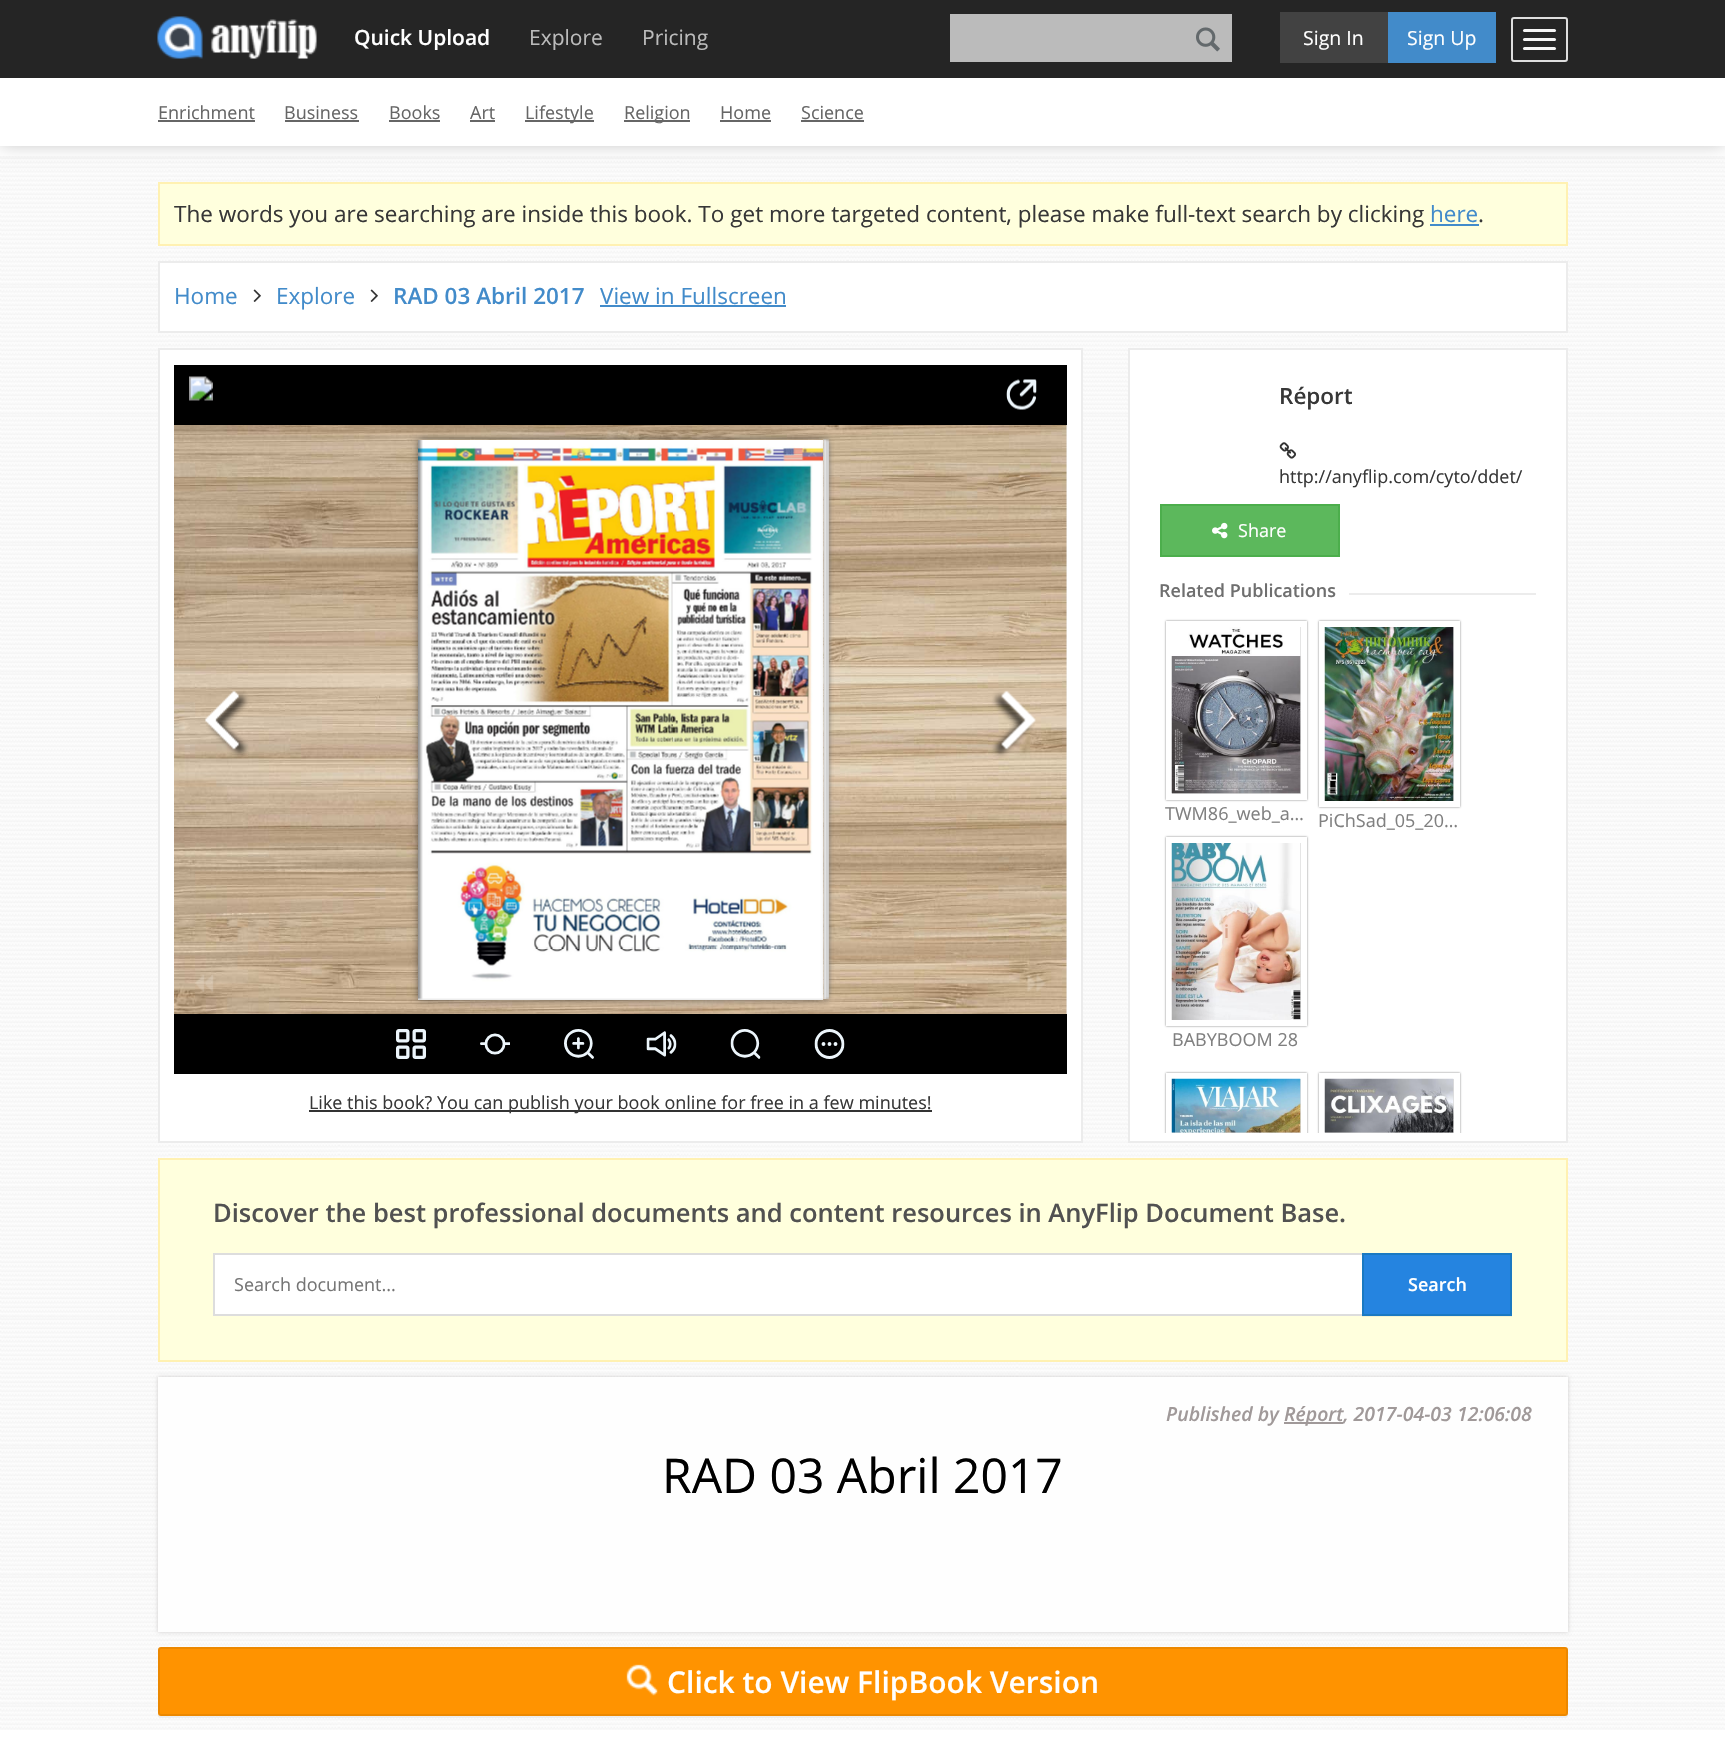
#include "include/core/SkBlurTypes.h"
#include "include/core/SkCanvas.h"
#include "include/core/SkData.h"
#include "include/core/SkFont.h"
#include "include/core/SkFontMgr.h"
#include "include/core/SkImage.h"
#include "include/core/SkMaskFilter.h"
#include "include/core/SkPaint.h"
#include "include/core/SkPathBuilder.h"
#include "include/core/SkTextBlob.h"
#include "include/effects/SkDashPathEffect.h"
#include "include/effects/SkGradientShader.h"
#include "include/utils/SkParsePath.h"

extern sk_sp<SkFontMgr> fontMgr;

static SkFont font(const char* family, int weight, float size, bool italic = false) {
    SkFontStyle style(weight, SkFontStyle::kNormal_Width,
        italic ? SkFontStyle::kItalic_Slant : SkFontStyle::kUpright_Slant);
    SkFont result(fontMgr->matchFamilyStyle(family, style), size);
    result.setSubpixel(true);
    return result;
}

static void drawLabel(SkCanvas* canvas, const char* s, float x, float y, const SkFont& font, SkColor color) {
    SkPaint ink(SkColor4f::FromColor(color));
    ink.setAntiAlias(true);
    canvas->drawString(s, x, y, font, ink);
}

static void fillRect(SkCanvas* canvas, float x, float y, float w, float h, SkColor color) {
    SkPaint ink(SkColor4f::FromColor(color));
    ink.setAntiAlias(true);
    canvas->drawRect(SkRect::MakeXYWH(x, y, w, h), ink);
}

static void fillRRect(SkCanvas* canvas, float x, float y, float w, float h, float radius, SkColor color) {
    SkPaint ink(SkColor4f::FromColor(color));
    ink.setAntiAlias(true);
    canvas->drawRoundRect(SkRect::MakeXYWH(x, y, w, h), radius, radius, ink);
}

static void drawPhoto(SkCanvas* canvas, const char* path, float x, float y, float w, float h) {
    auto image = SkImages::DeferredFromEncodedData(SkData::MakeFromFileName(path));
    canvas->drawImageRect(image, SkRect::MakeXYWH(x, y, w, h), SkSamplingOptions());
}

static SkPath parsePath(const char* data, bool evenOdd = false) {
    SkPath result = *SkParsePath::FromSVGString(data);
    if (evenOdd) result.setFillType(SkPathFillType::kEvenOdd);
    return result;
}

void draw(SkCanvas* canvas) {
    SkPaint paint;
    paint.setAntiAlias(true);
    canvas->clear(0xFFFFFFFF);
    drawPhoto(canvas, "assets/img3.png", 0, 156, 1725, 1574);
    paint.setColor(0x47000000);
    paint.setMaskFilter(SkMaskFilter::MakeBlur(kNormal_SkBlurStyle, 9));
    canvas->drawRect(SkRect::MakeXYWH(0, 75, 1725, 68), paint);
    paint.setMaskFilter(nullptr);
    fillRect(canvas, 0, 0, 1725, 78, 0xFF252525);
    drawPhoto(canvas, "assets/img1.png", 157, 16, 160, 43);
    SkFont font1 = font("Open Sans", 600, 21);
    drawLabel(canvas, "Quick Upload", 354, 45, font1, 0xFFFFFFFF);
    SkFont font2 = font("Open Sans", 400, 21);
    drawLabel(canvas, "Explore", 529, 45, font2, 0xFFBBBBBB);
    drawLabel(canvas, "Pricing", 642, 45, font2, 0xFFBBBBBB);
    fillRect(canvas, 950, 14, 282, 48, 0xFFBBBBBB);
    drawPhoto(canvas, "assets/img2.png", 1196, 27, 24, 25);
    fillRect(canvas, 1280, 12, 108, 51, 0xFF424242);
    SkFont font3 = font("Open Sans", 400, 19.5f);
    drawLabel(canvas, "Sign In", 1303, 45, font3, 0xFFFFFFFF);
    fillRect(canvas, 1388, 12, 108, 51, 0xFF428BCA);
    drawLabel(canvas, "Sign Up", 1407, 45, font3, 0xFFFFFFFF);
    paint.setStroke(true);
    paint.setStrokeWidth(2);
    paint.setColor(0xFFDEDEDE);
    canvas->drawRoundRect(SkRect::MakeXYWH(1512, 18, 55, 43), 2, 2, paint);
    fillRRect(canvas, 1523, 29, 33, 3, 1.5f, 0xFFF5F5F5);
    fillRRect(canvas, 1523, 38, 33, 3, 1.5f, 0xFFF5F5F5);
    fillRRect(canvas, 1523, 47, 33, 3, 1.5f, 0xFFF5F5F5);
    fillRect(canvas, 0, 78, 1725, 68, 0xFFFFFFFF);
    SkFont font4 = font("Open Sans", 400, 18);
    drawLabel(canvas, "Enrichment", 158, 119, font4, 0xFF666666);
    fillRect(canvas, 158, 120, 97, 2, 0xFF666666);
    drawLabel(canvas, "Business", 284, 119, font4, 0xFF666666);
    fillRect(canvas, 285, 120, 74, 2, 0xFF666666);
    drawLabel(canvas, "Books", 389, 119, font4, 0xFF666666);
    fillRect(canvas, 389, 120, 51, 2, 0xFF666666);
    drawLabel(canvas, "Art", 470, 119, font4, 0xFF666666);
    fillRect(canvas, 470, 120, 25, 2, 0xFF666666);
    fillRect(canvas, 525, 120, 69, 2, 0xFF666666);
    drawLabel(canvas, "Lifestyle", 525, 119, font4, 0xFF666666);
    fillRect(canvas, 624, 120, 66, 2, 0xFF666666);
    drawLabel(canvas, "Religion", 624, 119, font4, 0xFF666666);
    drawLabel(canvas, "Home", 720, 119, font4, 0xFF666666);
    fillRect(canvas, 720, 120, 51, 2, 0xFF666666);
    drawLabel(canvas, "Science", 801, 119, font4, 0xFF666666);
    fillRect(canvas, 801, 120, 63, 2, 0xFF666666);
    paint.setStroke(false);
    paint.setColor(0xFFFFFFDD);
    canvas->drawRect(SkRect::MakeXYWH(159, 183, 1408, 62), paint);
    paint.setStroke(true);
    paint.setColor(0xFFFFF1B2);
    canvas->drawRect(SkRect::MakeXYWH(159, 183, 1408, 62), paint);
    SkFont font5 = font("Open Sans", 400, 22.5f);
    drawLabel(canvas, "The words you are searching are inside this book. To get more targeted content, please make full-text search by clicking", 174, 222, font5, 0xFF373737);
    drawLabel(canvas, "here", 1430, 222, font5, 0xFF428BCA);
    fillRect(canvas, 1430, 224, 49, 2, 0xFF428BCA);
    drawLabel(canvas, ".", 1478, 222, font5, 0xFF373737);
    paint.setStroke(false);
    paint.setColor(0xFFFFFFFF);
    canvas->drawRect(SkRect::MakeXYWH(159, 262, 1408, 70), paint);
    paint.setStroke(true);
    paint.setColor(0xFFECECEC);
    canvas->drawRect(SkRect::MakeXYWH(159, 262, 1408, 70), paint);
    drawLabel(canvas, "Home", 174, 304, font5, 0xFF428BCA);
    drawPhoto(canvas, "assets/img4.png", 253, 289, 8, 13);
    drawLabel(canvas, "Explore", 276, 304, font5, 0xFF428BCA);
    drawPhoto(canvas, "assets/img4.png", 370, 289, 8, 13);
    SkFont font6 = font("Open Sans", 600, 22.5f);
    drawLabel(canvas, "RAD 03 Abril 2017", 393, 304, font6, 0xFF428BCA);
    drawLabel(canvas, "View in Fullscreen", 600, 304, font5, 0xFF428BCA);
    fillRect(canvas, 600, 305, 186, 2, 0xFF428BCA);
    paint.setStroke(false);
    paint.setColor(0xFFFFFFFF);
    canvas->drawRect(SkRect::MakeXYWH(1129, 349, 438, 793), paint);
    paint.setStroke(true);
    paint.setColor(0xFFECECEC);
    canvas->drawRect(SkRect::MakeXYWH(1129, 349, 438, 793), paint);
    drawLabel(canvas, "Réport", 1279, 404, font6, 0xFF373737);
    drawPhoto(canvas, "assets/img5.png", 1279, 442, 17, 17);
    drawLabel(canvas, "http://anyflip.com/cyto/ddet/", 1279, 483, font4, 0xFF373737);
    paint.setStroke(false);
    paint.setColor(0xFF5CB85C);
    canvas->drawRect(SkRect::MakeXYWH(1161, 505, 178, 51), paint);
    paint.setStroke(true);
    paint.setColor(0xFF4CAE4C);
    canvas->drawRect(SkRect::MakeXYWH(1161, 505, 178, 51), paint);
    drawPhoto(canvas, "assets/img6.png", 1212, 522, 16, 17);
    drawLabel(canvas, "Share", 1238, 537, font4, 0xFFFFFFFF);
    SkFont font7 = font("Open Sans", 600, 18);
    drawLabel(canvas, "Related Publications", 1159, 597, font7, 0xFF6F6F6F);
    fillRect(canvas, 1349, 593, 187, 2, 0xFFECECEC);
    paint.setStroke(false);
    paint.setColor(0x82000000);
    paint.setMaskFilter(SkMaskFilter::MakeBlur(kNormal_SkBlurStyle, 1));
    canvas->drawRect(SkRect::MakeXYWH(1166, 621, 141, 179), paint);
    paint.setMaskFilter(nullptr);
    paint.setColor(0xFFDDDDDD);
    canvas->drawRect(SkRect::MakeXYWH(1169, 624, 135, 173), paint);
    paint.setStroke(true);
    paint.setStrokeWidth(6);
    paint.setColor(0xFFFFFFFF);
    canvas->drawRect(SkRect::MakeXYWH(1169, 624, 135, 173), paint);
    drawPhoto(canvas, "assets/img7.png", 1171, 627, 130, 167);
    drawLabel(canvas, "TWM86_web_a…", 1165, 820, font4, 0xFF808080);
    paint.setStroke(false);
    paint.setColor(0x82000000);
    paint.setMaskFilter(SkMaskFilter::MakeBlur(kNormal_SkBlurStyle, 1));
    canvas->drawRect(SkRect::MakeXYWH(1319, 621, 141, 186), paint);
    paint.setMaskFilter(nullptr);
    fillRect(canvas, 1453, 627, 1, 174, 0xFFDDDDDD);
    paint.setStroke(true);
    paint.setColor(0xFFFFFFFF);
    canvas->drawRect(SkRect::MakeXYWH(1322, 624, 135, 180), paint);
    drawPhoto(canvas, "assets/img8.png", 1324, 627, 130, 174);
    drawLabel(canvas, "PiChSad_05_20…", 1318, 827, font4, 0xFF808080);
    paint.setStroke(false);
    paint.setColor(0x82000000);
    paint.setMaskFilter(SkMaskFilter::MakeBlur(kNormal_SkBlurStyle, 1));
    canvas->drawRect(SkRect::MakeXYWH(1166, 837, 141, 189), paint);
    paint.setMaskFilter(nullptr);
    fillRect(canvas, 1300, 843, 1, 177, 0xFFDDDDDD);
    paint.setStroke(true);
    paint.setColor(0xFFFFFFFF);
    canvas->drawRect(SkRect::MakeXYWH(1169, 840, 135, 183), paint);
    drawPhoto(canvas, "assets/img9.png", 1171, 843, 130, 177);
    drawLabel(canvas, "i", 1224, 938, font7, 0xFFDAA68E);
    drawLabel(canvas, "BABYBOOM 28", 1172, 1046, font4, 0xFF808080);
    paint.setStroke(false);
    paint.setColor(0xFFFFFFDD);
    canvas->drawRect(SkRect::MakeXYWH(159, 1159, 1408, 202), paint);
    paint.setStroke(true);
    paint.setStrokeWidth(2);
    paint.setColor(0xFFFFF1B2);
    canvas->drawRect(SkRect::MakeXYWH(159, 1159, 1408, 202), paint);
    canvas->save();
    canvas->clipRect(SkRect::MakeXYWH(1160, 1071, 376, 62));
    paint.setStroke(false);
    paint.setColor(0x82000000);
    paint.setMaskFilter(SkMaskFilter::MakeBlur(kNormal_SkBlurStyle, 1));
    canvas->drawRect(SkRect::MakeXYWH(1166, 1073, 141, 177), paint);
    paint.setMaskFilter(nullptr);
    canvas->restore();
    fillRect(canvas, 1172, 1079, 129, 54, 0xFFDDDDDD);
    SkFont font8 = font("Open Sans", 600, 25.5f);
    drawLabel(canvas, "Discover the best professional documents and content resources in AnyFlip Document Base.", 213, 1222, font8, 0xFF515151);
    canvas->save();
    canvas->clipRect(SkRect::MakeXYWH(1160, 1071, 376, 62));
    paint.setStroke(true);
    paint.setStrokeWidth(6);
    paint.setColor(0xFFFFFFFF);
    canvas->drawRect(SkRect::MakeXYWH(1169, 1076, 135, 171), paint);
    canvas->restore();
    drawPhoto(canvas, "assets/img10.png", 1171, 1078, 130, 55);
    canvas->save();
    canvas->clipRect(SkRect::MakeXYWH(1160, 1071, 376, 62));
    paint.setStroke(false);
    paint.setColor(0x82000000);
    paint.setMaskFilter(SkMaskFilter::MakeBlur(kNormal_SkBlurStyle, 1));
    canvas->drawRect(SkRect::MakeXYWH(1319, 1073, 141, 195), paint);
    paint.setMaskFilter(nullptr);
    canvas->restore();
    fillRect(canvas, 1325, 1079, 129, 54, 0xFFDDDDDD);
    canvas->save();
    canvas->clipRect(SkRect::MakeXYWH(1160, 1071, 376, 62));
    paint.setStroke(true);
    paint.setColor(0xFFFFFFFF);
    canvas->drawRect(SkRect::MakeXYWH(1322, 1076, 135, 189), paint);
    canvas->restore();
    drawPhoto(canvas, "assets/img11.png", 1324, 1078, 130, 55);
    paint.setStroke(false);
    canvas->drawRect(SkRect::MakeXYWH(159, 349, 923, 793), paint);
    paint.setStroke(true);
    paint.setStrokeWidth(2);
    paint.setColor(0xFFECECEC);
    canvas->drawRect(SkRect::MakeXYWH(159, 349, 923, 793), paint);
    drawPhoto(canvas, "assets/img12.png", 174, 365, 893, 709);
    fillRect(canvas, 309, 1110, 623, 2, 0xFF333333);
    drawLabel(canvas, "Like this book? You can publish your book online for free in a few minutes!", 309, 1109, font4, 0xFF373737);
    fillRect(canvas, 215, 1255, 1147, 59, 0xFFFFFFFF);
    fillRect(canvas, 213, 1253, 1149, 2, 0xFFDDDDDD);
    fillRect(canvas, 213, 1314, 1149, 2, 0xFFDDDDDD);
    fillRect(canvas, 213, 1253, 2, 63, 0xFFDDDDDD);
    drawLabel(canvas, "Search document...", 234, 1291, font4, 0xFF757575);
    fillRect(canvas, 1362, 1316, 150, 1, 0xFFF2F2D2);
    paint.setStroke(false);
    paint.setColor(0xFF2584E0);
    canvas->drawRect(SkRect::MakeXYWH(1363, 1254, 148, 61), paint);
    paint.setStroke(true);
    paint.setColor(0xFF1A79C2);
    canvas->drawRect(SkRect::MakeXYWH(1363, 1254, 148, 61), paint);
    drawLabel(canvas, "Search", 1408, 1291, font7, 0xFFFFFFFF);
    paint.setStroke(false);
    paint.setColor(0xFFCDCBCB);
    paint.setMaskFilter(SkMaskFilter::MakeBlur(kNormal_SkBlurStyle, 2));
    canvas->drawRect(SkRect::MakeXYWH(158, 1377, 1410, 255), paint);
    paint.setMaskFilter(nullptr);
    fillRect(canvas, 158, 1377, 1410, 255, 0xFFFEFEFE);
    SkFont font9 = font("Open Sans", 600, 19.5f, true);
    drawLabel(canvas, "Published by", 1166, 1421, font9, 0xFFA09999);
    fillRect(canvas, 1284, 1422, 59, 2, 0xFFA09999);
    drawLabel(canvas, "Réport, 2017-04-03 12:06:08", 1284, 1421, font9, 0xFFA09999);
    SkFont font10 = font("Open Sans", 400, 48);
    drawLabel(canvas, "RAD 03 Abril 2017", 662, 1493, font10, 0xFF000000);
    paint.setColor(0x0D000000);
    canvas->drawPath(parsePath("M158 1715C158 1717 159 1718 161 1718H1565C1567 1718 1568 1717 1568 1715V1652V1650V1713C1568 1715 1566 1716 1564 1716H160C159 1716 159 1715 158 1715Z"), paint);
    paint.setColor(0xFFFF9300);
    canvas->drawRoundRect(SkRect::MakeXYWH(159, 1648, 1408, 67), 2, 2, paint);
    paint.setStroke(true);
    paint.setColor(0xFFEC8800);
    canvas->drawRoundRect(SkRect::MakeXYWH(159, 1648, 1408, 67), 2, 2, paint);
    drawPhoto(canvas, "assets/img13.png", 626, 1664, 32, 32);
    SkFont font11 = font("Open Sans", 600, 30);
    drawLabel(canvas, "Click to View FlipBook Version", 667, 1693, font11, 0xFFFFFFFF);
}
